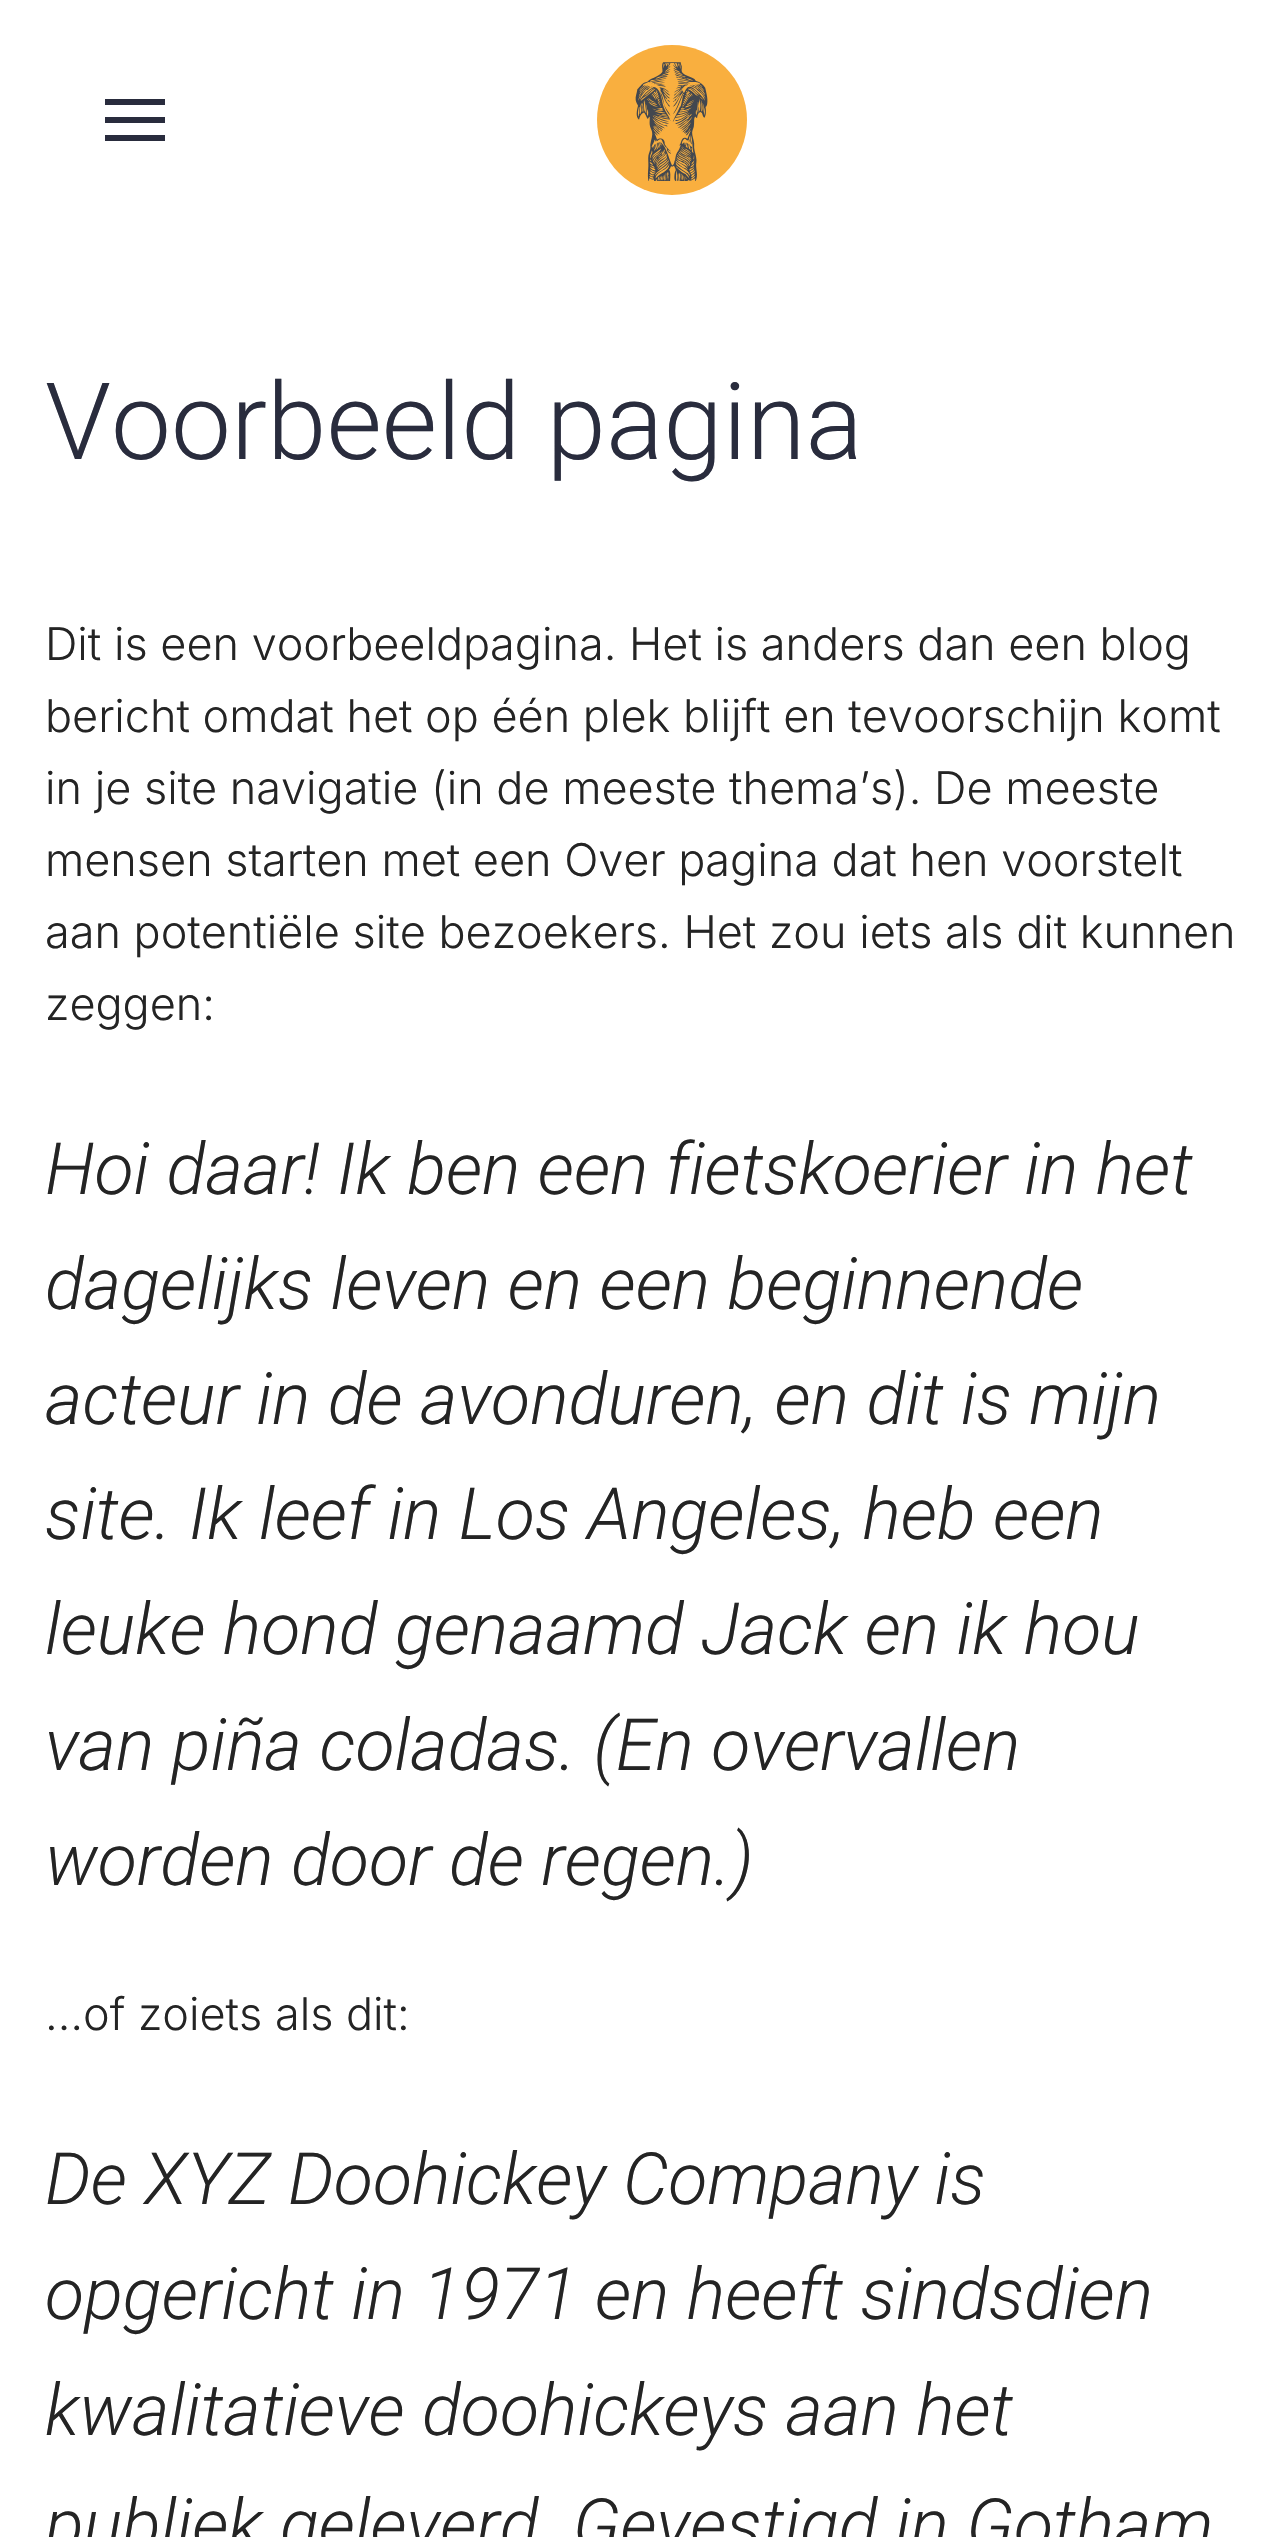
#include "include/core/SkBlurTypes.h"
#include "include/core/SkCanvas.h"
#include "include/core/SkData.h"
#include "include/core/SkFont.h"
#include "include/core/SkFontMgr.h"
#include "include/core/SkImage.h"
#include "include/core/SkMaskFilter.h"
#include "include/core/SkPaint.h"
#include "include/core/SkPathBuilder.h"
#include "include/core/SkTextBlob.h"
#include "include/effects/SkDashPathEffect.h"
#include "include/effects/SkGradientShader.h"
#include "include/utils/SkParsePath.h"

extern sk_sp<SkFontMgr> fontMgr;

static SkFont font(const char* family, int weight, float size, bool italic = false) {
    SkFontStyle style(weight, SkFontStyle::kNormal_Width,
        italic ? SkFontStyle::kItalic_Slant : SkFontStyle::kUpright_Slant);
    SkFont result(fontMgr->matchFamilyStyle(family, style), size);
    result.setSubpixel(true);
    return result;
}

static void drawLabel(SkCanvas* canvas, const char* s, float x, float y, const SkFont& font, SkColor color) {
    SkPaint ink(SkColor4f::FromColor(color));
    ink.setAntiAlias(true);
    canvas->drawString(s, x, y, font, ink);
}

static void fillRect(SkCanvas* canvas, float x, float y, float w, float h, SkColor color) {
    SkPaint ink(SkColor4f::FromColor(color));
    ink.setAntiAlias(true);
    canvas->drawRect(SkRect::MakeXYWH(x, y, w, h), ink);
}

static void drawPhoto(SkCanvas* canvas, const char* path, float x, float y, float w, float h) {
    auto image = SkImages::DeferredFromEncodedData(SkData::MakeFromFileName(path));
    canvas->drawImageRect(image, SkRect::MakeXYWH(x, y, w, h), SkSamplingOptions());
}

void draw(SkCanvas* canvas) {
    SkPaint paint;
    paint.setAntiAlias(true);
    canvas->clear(0xFFFFFFFF);
    fillRect(canvas, 105, 99, 60, 6, 0xFF292C3D);
    fillRect(canvas, 105, 117, 60, 6, 0xFF292C3D);
    fillRect(canvas, 105, 135, 60, 6, 0xFF292C3D);
    drawPhoto(canvas, "assets/img1.png", 597, 45, 150, 150);
    SkFont font1 = font("Roboto", 300, 107);
    drawLabel(canvas, "Voorbeeld pagina", 45, 459, font1, 0xFF292C3D);
    SkFont font2 = font("Inter", 300, 45);
    drawLabel(canvas, "Dit is een voorbeeldpagina. Het is anders dan een blog", 45, 660, font2, 0xFF242424);
    drawLabel(canvas, "bericht omdat het op één plek blijft en tevoorschijn komt", 45, 732, font2, 0xFF242424);
    drawLabel(canvas, "in je site navigatie (in de meeste thema’s). De meeste", 45, 804, font2, 0xFF242424);
    drawLabel(canvas, "mensen starten met een Over pagina dat hen voorstelt", 45, 876, font2, 0xFF242424);
    drawLabel(canvas, "aan potentiële site bezoekers. Het zou iets als dit kunnen", 45, 948, font2, 0xFF242424);
    drawLabel(canvas, "zeggen:", 45, 1020, font2, 0xFF242424);
    SkFont font3 = font("Roboto", 300, 72, true);
    drawLabel(canvas, "Hoi daar! Ik ben een fietskoerier in het", 45, 1194, font3, 0xFF242424);
    drawLabel(canvas, "dagelijks leven en een beginnende", 45, 1309, font3, 0xFF242424);
    drawLabel(canvas, "acteur in de avonduren, en dit is mijn", 45, 1424, font3, 0xFF242424);
    drawLabel(canvas, "site. Ik leef in Los Angeles, heb een", 45, 1539, font3, 0xFF242424);
    drawLabel(canvas, "leuke hond genaamd Jack en ik hou", 45, 1654, font3, 0xFF242424);
    drawLabel(canvas, "van piña coladas. (En overvallen", 45, 1770, font3, 0xFF242424);
    drawLabel(canvas, "worden door de regen.)", 45, 1885, font3, 0xFF242424);
    drawLabel(canvas, "…of zoiets als dit:", 45, 2030, font2, 0xFF242424);
    drawLabel(canvas, "De XYZ Doohickey Company is", 45, 2204, font3, 0xFF242424);
    drawLabel(canvas, "opgericht in 1971 en heeft sindsdien", 45, 2319, font3, 0xFF242424);
    drawLabel(canvas, "kwalitatieve doohickeys aan het", 45, 2435, font3, 0xFF242424);
    drawLabel(canvas, "publiek geleverd. Gevestigd in Gotham", 45, 2550, font3, 0xFF242424);
}
